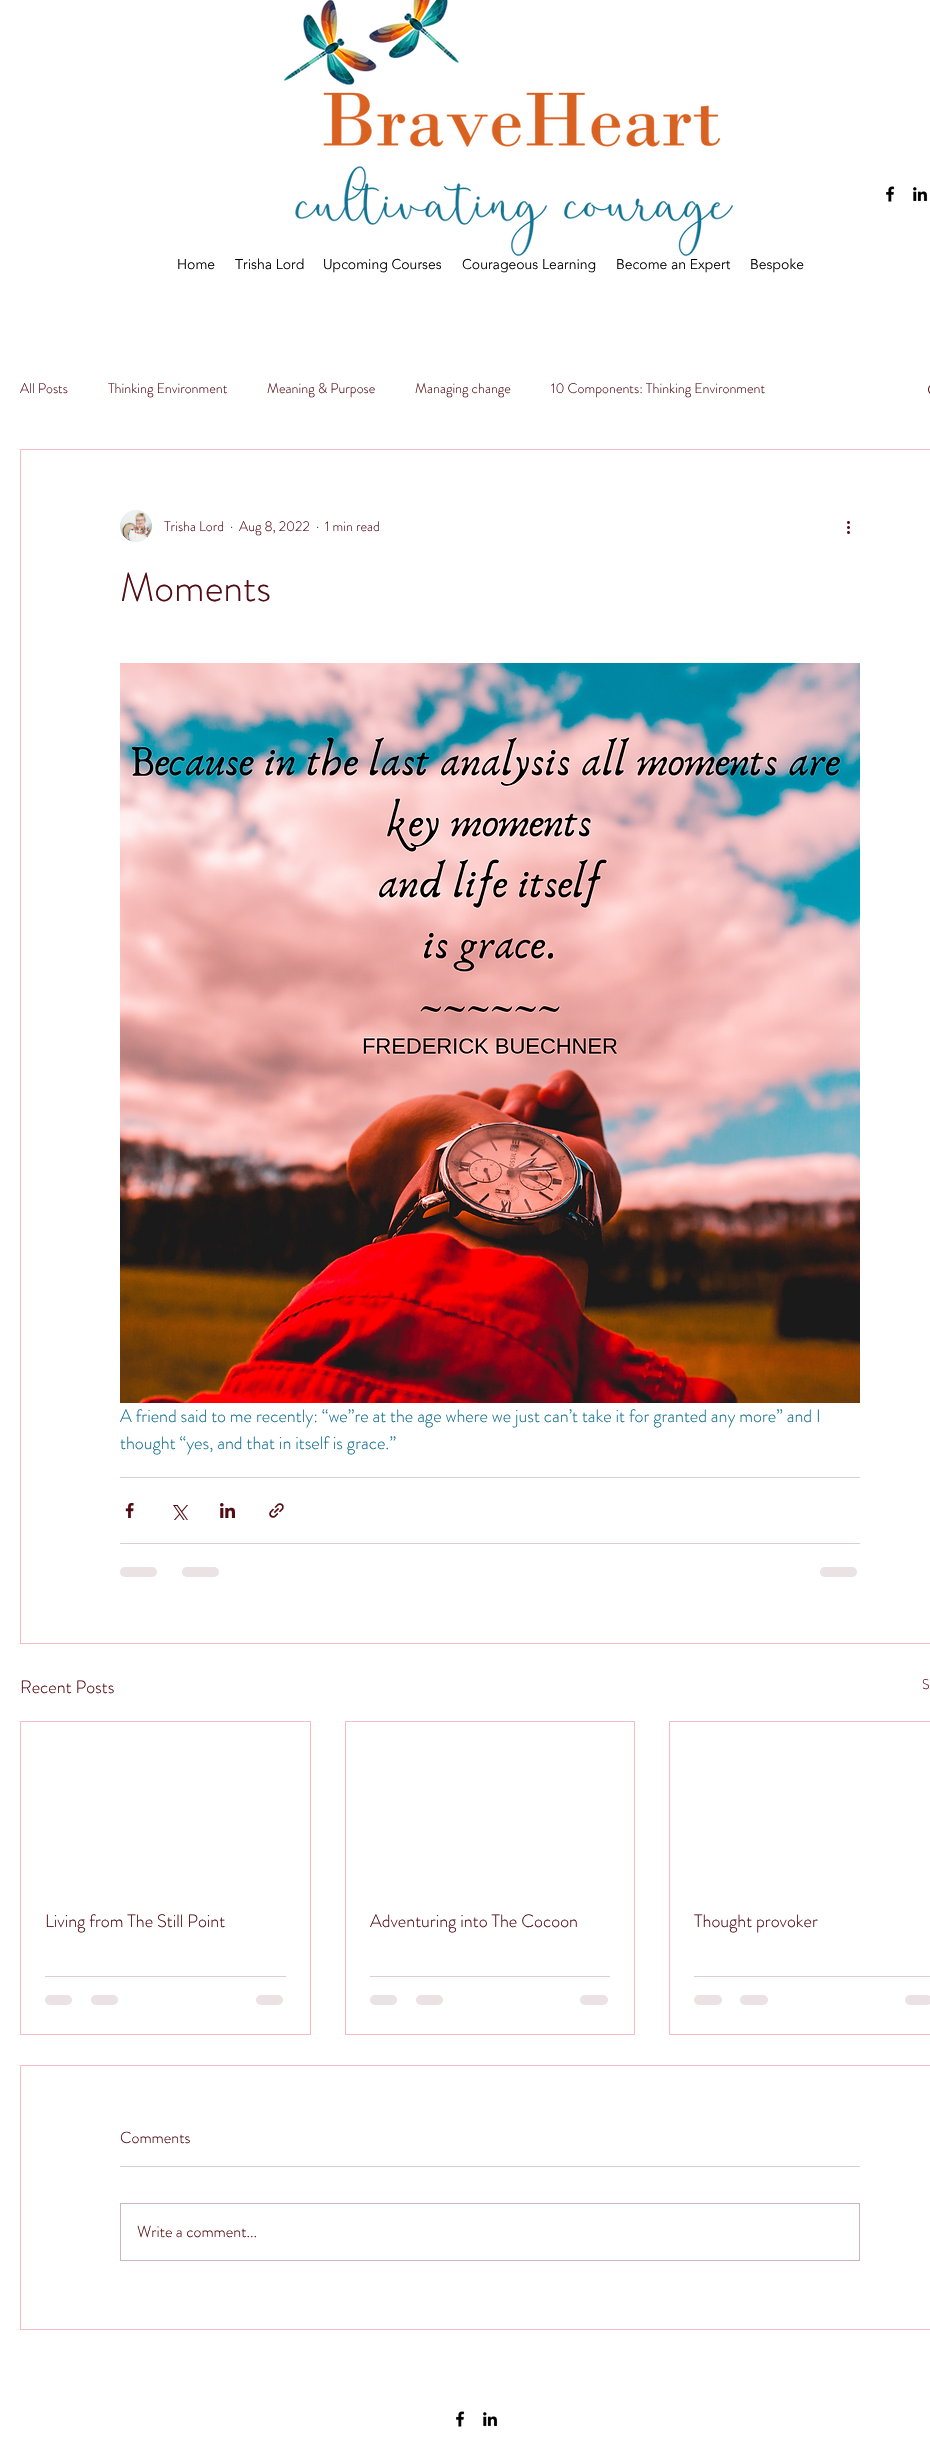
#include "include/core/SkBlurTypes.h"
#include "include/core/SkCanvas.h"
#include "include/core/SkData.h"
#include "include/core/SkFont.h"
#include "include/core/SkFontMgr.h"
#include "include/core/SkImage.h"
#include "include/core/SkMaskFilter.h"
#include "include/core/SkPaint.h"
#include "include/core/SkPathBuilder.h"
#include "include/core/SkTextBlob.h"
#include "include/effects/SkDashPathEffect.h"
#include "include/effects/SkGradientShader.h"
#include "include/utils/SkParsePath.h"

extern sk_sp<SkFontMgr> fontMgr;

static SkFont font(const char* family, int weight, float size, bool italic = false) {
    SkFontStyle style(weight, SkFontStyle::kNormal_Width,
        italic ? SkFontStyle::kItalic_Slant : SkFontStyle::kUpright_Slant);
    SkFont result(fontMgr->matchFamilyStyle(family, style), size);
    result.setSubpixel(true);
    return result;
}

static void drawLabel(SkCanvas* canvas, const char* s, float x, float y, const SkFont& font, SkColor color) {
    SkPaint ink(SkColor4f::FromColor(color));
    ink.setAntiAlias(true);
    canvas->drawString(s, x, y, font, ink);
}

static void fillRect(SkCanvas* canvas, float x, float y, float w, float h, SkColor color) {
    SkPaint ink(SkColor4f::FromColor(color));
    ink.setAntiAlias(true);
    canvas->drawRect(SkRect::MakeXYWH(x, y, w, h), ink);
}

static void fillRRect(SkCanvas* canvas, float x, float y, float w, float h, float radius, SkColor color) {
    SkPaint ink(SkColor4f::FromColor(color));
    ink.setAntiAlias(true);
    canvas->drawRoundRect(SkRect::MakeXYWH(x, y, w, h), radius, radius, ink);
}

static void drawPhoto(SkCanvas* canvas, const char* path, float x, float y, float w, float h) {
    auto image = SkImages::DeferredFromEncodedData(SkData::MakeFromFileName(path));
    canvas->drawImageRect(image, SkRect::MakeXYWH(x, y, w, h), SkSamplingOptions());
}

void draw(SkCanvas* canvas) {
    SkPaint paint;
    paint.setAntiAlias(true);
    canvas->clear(0xFFFFFFFF);
    drawPhoto(canvas, "assets/img1.png", 283, 0, 451, 257);
    drawPhoto(canvas, "assets/img2.png", 886, 186, 9, 16);
    drawPhoto(canvas, "assets/img3.png", 913, 187, 15, 15);
    SkFont font1 = font("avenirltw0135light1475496", 300, 14);
    drawLabel(canvas, "Home", 177, 269, font1, 0xFF000000);
    drawLabel(canvas, "Trisha Lord", 235, 269, font1, 0xFF000000);
    drawLabel(canvas, "Upcoming Courses", 323, 269, font1, 0xFF000000);
    drawLabel(canvas, "Courageous Learning", 462, 269, font1, 0xFF000000);
    drawLabel(canvas, "Become an Expert", 616, 269, font1, 0xFF000000);
    drawLabel(canvas, "Bespoke", 750, 269, font1, 0xFF000000);
    SkFont font2 = font("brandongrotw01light", 300, 14);
    drawLabel(canvas, "All Posts", 20, 393, font2, 0xFF540C14);
    drawLabel(canvas, "Thinking Environment", 108, 393, font2, 0xFF540C14);
    drawLabel(canvas, "Meaning & Purpose", 267, 393, font2, 0xFF540C14);
    drawLabel(canvas, "Managing change", 415, 393, font2, 0xFF540C14);
    drawLabel(canvas, "10 Components: Thinking Environment", 551, 393, font2, 0xFF540C14);
    drawPhoto(canvas, "assets/img4.png", 928, 385, 2, 9);
    paint.setStroke(true);
    paint.setStrokeWidth(1);
    paint.setColor(0xFFF5BBC2);
    canvas->drawRect(SkRect::MakeXYWH(20.5f, 449.5f, 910, 1194), paint);
    drawPhoto(canvas, "assets/img5.png", 120, 510, 32, 32);
    drawLabel(canvas, "Trisha Lord", 164, 531, font2, 0xFF540C14);
    drawLabel(canvas, "·", 230, 531, font2, 0xFF540C14);
    drawLabel(canvas, "Aug 8, 2022", 239, 531, font2, 0xFF540C14);
    drawLabel(canvas, "·", 316, 531, font2, 0xFF540C14);
    drawLabel(canvas, "1 min read", 325, 531, font2, 0xFF540C14);
    drawPhoto(canvas, "assets/img6.png", 847, 521, 3, 13);
    SkFont font3 = font("brandongrotw01light", 300, 40);
    drawLabel(canvas, "Moments", 120, 601, font3, 0xFF540C14);
    drawPhoto(canvas, "assets/img7.png", 120, 663, 740, 740);
    SkFont font4 = font("brandongrotw01light", 300, 18);
    drawLabel(canvas, "A friend said to me recently: “we”re at the age where we just can’t take it for granted any more” and I", 120, 1422, font4, 0xFF137191);
    drawLabel(canvas, "thought “yes, and that in itself is grace.”", 120, 1449, font4, 0xFF137191);
    fillRect(canvas, 120, 1477, 740, 1, 0xFFDDCED0);
    drawPhoto(canvas, "assets/img8.png", 125, 1503, 9, 15);
    drawPhoto(canvas, "assets/img9.png", 173, 1505, 15, 15);
    drawPhoto(canvas, "assets/img10.png", 220, 1503, 15, 15);
    drawPhoto(canvas, "assets/img11.png", 269, 1503, 15, 15);
    fillRect(canvas, 120, 1543, 740, 1, 0xFFDDCED0);
    fillRRect(canvas, 120, 1567, 37, 10, 5, 0xFFEAE2E3);
    fillRRect(canvas, 182, 1567, 37, 10, 5, 0xFFEAE2E3);
    fillRRect(canvas, 820, 1567, 37, 10, 5, 0xFFEAE2E3);
    drawLabel(canvas, "Recent Posts", 20, 1693, font4, 0xFF540C14);
    drawLabel(canvas, "S", 922, 1689, font2, 0xFF540C14);
    canvas->drawRect(SkRect::MakeXYWH(20.5f, 1721.5f, 290, 313), paint);
    drawLabel(canvas, "Living from The Still Point", 45, 1927, font4, 0xFF540C14);
    fillRect(canvas, 45, 1976, 241, 1, 0xFFDDCED0);
    fillRRect(canvas, 45, 1995, 27, 10, 5, 0xFFEAE2E3);
    fillRRect(canvas, 91, 1995, 27, 10, 5, 0xFFEAE2E3);
    fillRRect(canvas, 256, 1995, 27, 10, 5, 0xFFEAE2E3);
    canvas->drawRect(SkRect::MakeXYWH(345.5f, 1721.5f, 289, 313), paint);
    drawLabel(canvas, "Adventuring into The Cocoon", 370, 1927, font4, 0xFF540C14);
    fillRect(canvas, 370, 1976, 240, 1, 0xFFDDCED0);
    fillRRect(canvas, 370, 1995, 27, 10, 5, 0xFFEAE2E3);
    fillRRect(canvas, 416, 1995, 27, 10, 5, 0xFFEAE2E3);
    fillRRect(canvas, 580, 1995, 28, 10, 5, 0xFFEAE2E3);
    canvas->drawRect(SkRect::MakeXYWH(669.5f, 1721.5f, 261, 313), paint);
    drawLabel(canvas, "Thought provoker", 694, 1927, font4, 0xFF540C14);
    fillRect(canvas, 694, 1976, 236, 1, 0xFFDDCED0);
    fillRRect(canvas, 694, 1995, 28, 10, 5, 0xFFEAE2E3);
    fillRRect(canvas, 740, 1995, 28, 10, 5, 0xFFEAE2E3);
    fillRRect(canvas, 905, 1995, 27, 10, 5, 0xFFEAE2E3);
    canvas->drawRect(SkRect::MakeXYWH(20.5f, 2065.5f, 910, 264), paint);
    SkFont font5 = font("brandongrotw01light", 300, 16);
    drawLabel(canvas, "Comments", 120, 2143, font5, 0xFF540C14);
    fillRect(canvas, 120, 2166, 740, 1, 0xFFDDCED0);
    paint.setColor(0xFFCCB6B9);
    canvas->drawRect(SkRect::MakeXYWH(120.5f, 2203.5f, 739, 57), paint);
    drawLabel(canvas, "Write a comment...", 137, 2237, font5, 0xFF540C14);
    drawPhoto(canvas, "assets/img2.png", 456, 2411, 9, 16);
    drawPhoto(canvas, "assets/img3.png", 483, 2412, 15, 15);
}
